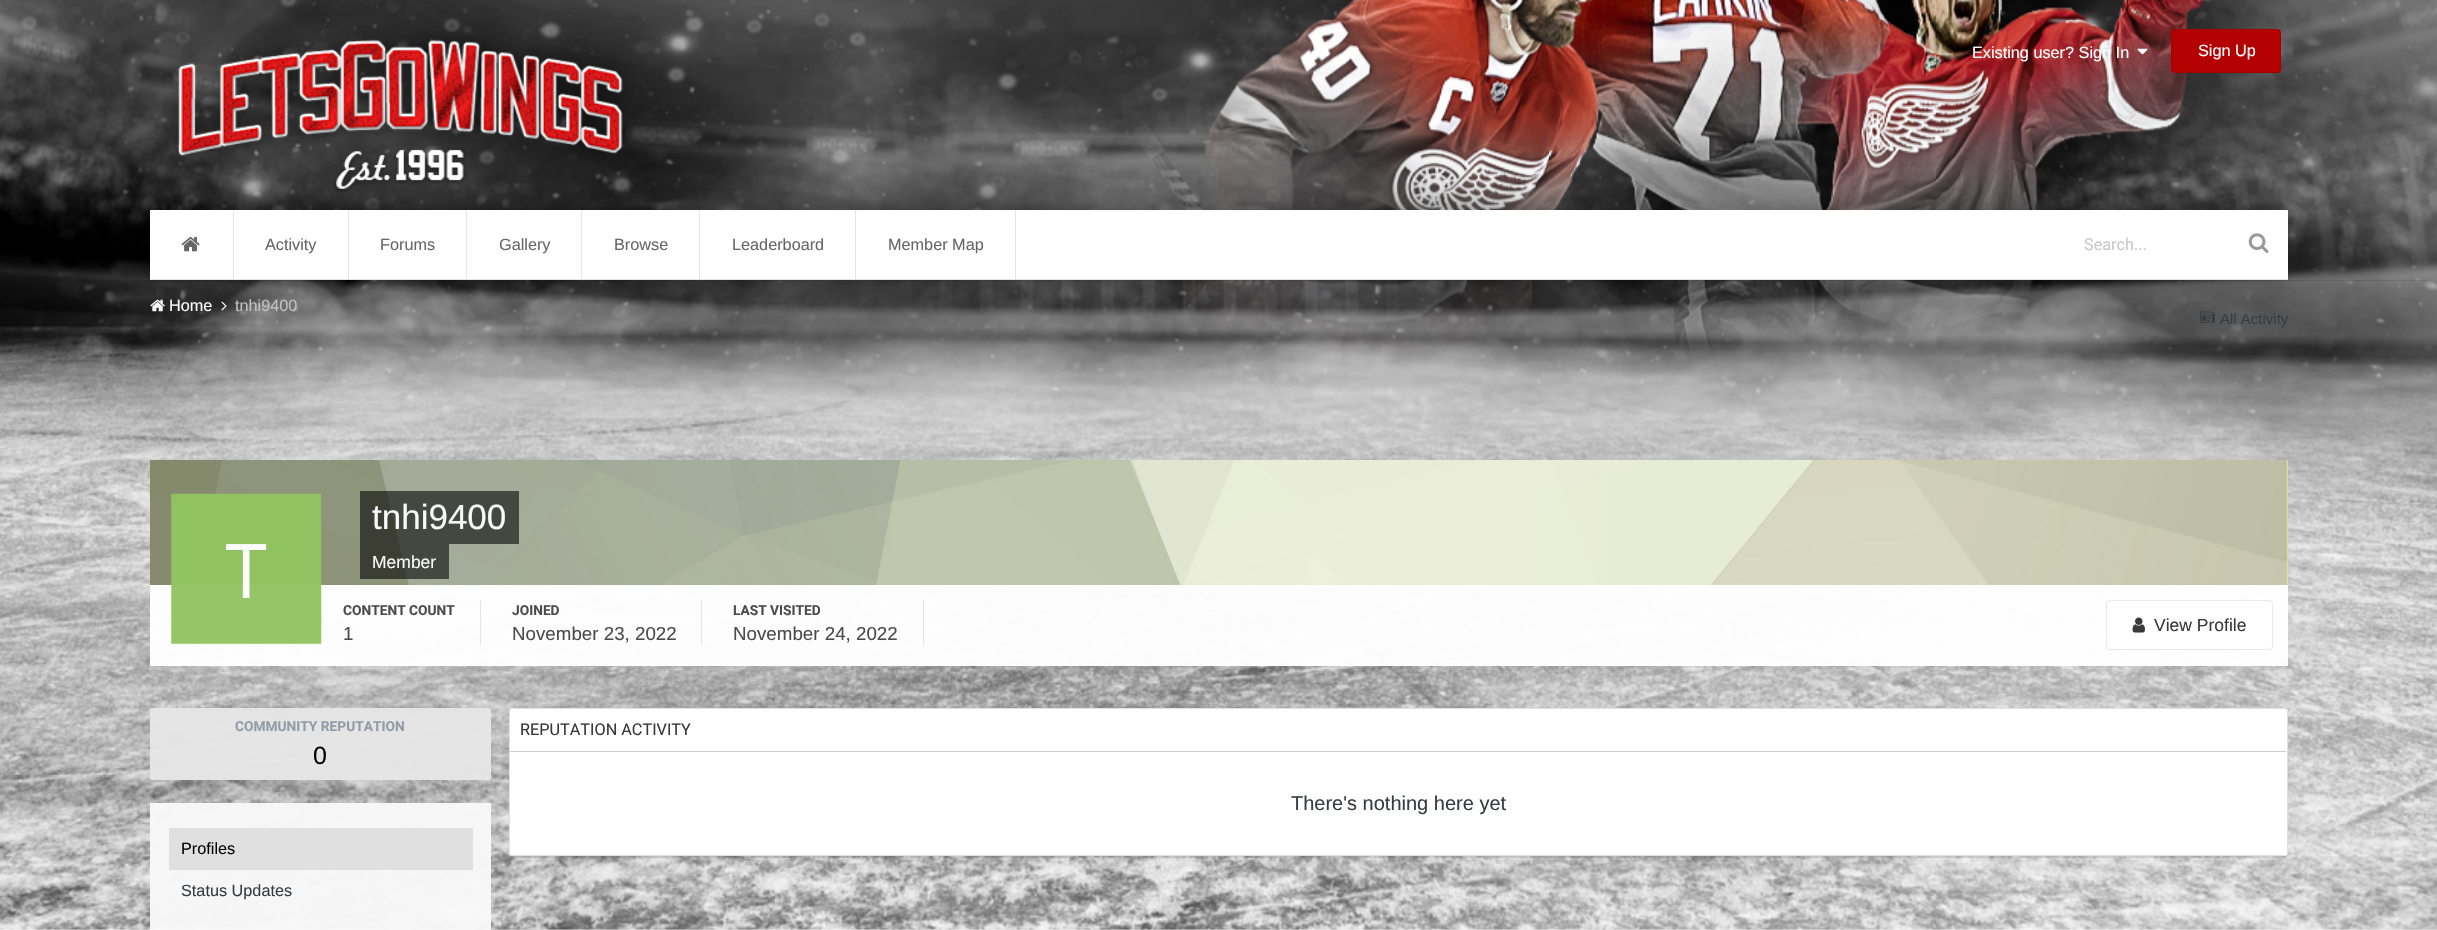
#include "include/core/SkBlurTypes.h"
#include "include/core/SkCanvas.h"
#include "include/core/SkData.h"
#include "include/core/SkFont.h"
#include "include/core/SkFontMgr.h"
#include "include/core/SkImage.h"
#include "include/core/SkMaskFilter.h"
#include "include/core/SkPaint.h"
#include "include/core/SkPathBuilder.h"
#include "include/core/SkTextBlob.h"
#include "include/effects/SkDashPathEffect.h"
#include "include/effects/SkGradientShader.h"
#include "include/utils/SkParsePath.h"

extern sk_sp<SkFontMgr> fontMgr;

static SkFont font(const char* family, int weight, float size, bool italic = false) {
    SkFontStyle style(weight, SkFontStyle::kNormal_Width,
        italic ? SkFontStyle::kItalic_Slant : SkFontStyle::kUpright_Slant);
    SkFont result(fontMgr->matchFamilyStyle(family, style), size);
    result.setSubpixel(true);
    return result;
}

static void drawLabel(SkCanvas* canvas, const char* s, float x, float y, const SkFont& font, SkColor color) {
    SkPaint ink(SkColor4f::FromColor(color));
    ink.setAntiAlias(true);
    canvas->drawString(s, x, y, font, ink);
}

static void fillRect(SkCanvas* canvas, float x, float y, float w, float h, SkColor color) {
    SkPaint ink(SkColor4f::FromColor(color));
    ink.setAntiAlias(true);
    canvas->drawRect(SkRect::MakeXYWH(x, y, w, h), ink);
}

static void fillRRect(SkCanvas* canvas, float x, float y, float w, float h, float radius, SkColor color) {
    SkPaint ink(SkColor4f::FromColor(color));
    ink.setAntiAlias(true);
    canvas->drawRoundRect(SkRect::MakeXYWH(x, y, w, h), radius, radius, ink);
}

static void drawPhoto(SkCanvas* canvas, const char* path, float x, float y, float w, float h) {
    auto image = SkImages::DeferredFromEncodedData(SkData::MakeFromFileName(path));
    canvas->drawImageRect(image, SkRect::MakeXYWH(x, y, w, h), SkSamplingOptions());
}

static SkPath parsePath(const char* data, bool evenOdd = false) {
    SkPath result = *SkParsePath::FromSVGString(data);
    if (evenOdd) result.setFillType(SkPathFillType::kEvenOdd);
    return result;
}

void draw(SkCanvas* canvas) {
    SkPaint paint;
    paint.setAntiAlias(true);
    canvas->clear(0xFFFFFFFF);
    drawPhoto(canvas, "assets/img1.png", 0, 0, 2437, 930);
    fillRect(canvas, 53, 280, 2375, 1, 0x1A000000);
    drawPhoto(canvas, "assets/img2.png", 162, 26, 474, 166);
    SkFont font1 = font("Liberation Sans", 400, 16.25f);
    drawLabel(canvas, "Existing user? Sign In", 1972, 58, font1, 0xFFFFFFFF);
    drawPhoto(canvas, "assets/img3.png", 2137, 48, 11, 7);
    fillRRect(canvas, 2171, 29, 110, 44, 4, 0xFFB40000);
    paint.setStroke(true);
    paint.setStrokeWidth(1);
    paint.setColor(0x1A000000);
    canvas->drawRoundRect(SkRect::MakeXYWH(2171.5f, 29.5f, 109, 43), 3.5f, 3.5f, paint);
    drawLabel(canvas, "Sign Up", 2198, 56, font1, 0xFFFFFFFF);
    drawPhoto(canvas, "assets/img6.png", 150, 299, 15, 13);
    drawPhoto(canvas, "assets/img7.png", 221, 301, 6, 10);
    drawPhoto(canvas, "assets/img8.png", 2200, 311, 15, 12);
    paint.setStroke(false);
    paint.setColor(0x4D000000);
    paint.setMaskFilter(SkMaskFilter::MakeBlur(kNormal_SkBlurStyle, 12.5f));
    canvas->drawRect(SkRect::MakeXYWH(150, 210, 2138, 70), paint);
    paint.setMaskFilter(nullptr);
    fillRect(canvas, 150, 210, 2138, 69, 0xFFFFFFFF);
    fillRect(canvas, 150, 279, 2138, 1, 0xFFE6E6E6);
    fillRect(canvas, 233, 210, 1, 69, 0xFFE6E6E6);
    drawPhoto(canvas, "assets/img4.png", 181, 236, 19, 16);
    fillRect(canvas, 348, 210, 1, 69, 0xFFE6E6E6);
    drawLabel(canvas, "Activity", 265, 250, font1, 0xFF666666);
    fillRect(canvas, 466, 210, 1, 69, 0xFFE6E6E6);
    drawLabel(canvas, "Forums", 380, 250, font1, 0xFF666666);
    fillRect(canvas, 581, 210, 1, 69, 0xFFE6E6E6);
    drawLabel(canvas, "Gallery", 499, 250, font1, 0xFF666666);
    fillRect(canvas, 699, 210, 1, 69, 0xFFE6E6E6);
    drawLabel(canvas, "Browse", 614, 250, font1, 0xFF666666);
    fillRect(canvas, 855, 210, 1, 69, 0xFFE6E6E6);
    drawLabel(canvas, "Leaderboard", 732, 250, font1, 0xFF666666);
    fillRect(canvas, 1015, 210, 1, 69, 0xFFE6E6E6);
    drawLabel(canvas, "Member Map", 888, 250, font1, 0xFF666666);
    SkFont font2 = font("Roboto", 400, 16.25f);
    drawLabel(canvas, "Search...", 2084, 250, font2, 0xFFC8C8C8);
    drawPhoto(canvas, "assets/img5.png", 2248, 233, 21, 20);
    drawLabel(canvas, "Home", 169, 311, font1, 0xFFF9F9F9);
    drawLabel(canvas, "tnhi9400", 235, 311, font1, 0xFFC1C1C1);
    SkFont font3 = font("Liberation Sans", 400, 15);
    drawLabel(canvas, "All Activity", 2220, 324, font3, 0xFF363D42);
    paint.setColor(0xF7292929);
    canvas->drawPath(parsePath("M155 460H2283C2286 460 2288 462 2288 465V585H150V465C150 462 152 460 155 460Z"), paint);
    fillRect(canvas, 150, 460, 2138, 125, 0xF7EEFF99);
    drawPhoto(canvas, "assets/img9.png", 150, 460, 2138, 125);
    fillRect(canvas, 150, 585, 2138, 81, 0xF7FFFFFF);
    drawPhoto(canvas, "assets/img10.png", 171, 493, 151, 151);
    fillRect(canvas, 360, 491, 159, 53, 0x94000000);
    SkFont font4 = font("Liberation Sans", 400, 35);
    drawLabel(canvas, "tnhi9400", 372, 529, font4, 0xFFF9F9F9);
    fillRect(canvas, 360, 544, 89, 35, 0x94000000);
    SkFont font5 = font("Liberation Sans", 400, 17.5f);
    drawLabel(canvas, "Member", 372, 568, font5, 0xFFF9F9F9);
    fillRect(canvas, 480, 600, 1, 45, 0xFFE4E4E4);
    SkFont font6 = font("Roboto", 700, 13.75f);
    drawLabel(canvas, "CONTENT COUNT", 343, 615, font6, 0xFF4B4B4B);
    SkFont font7 = font("Liberation Sans", 400, 18.75f);
    drawLabel(canvas, "1", 343, 640, font7, 0xFF4B4B4B);
    fillRect(canvas, 701, 600, 1, 45, 0xFFE4E4E4);
    drawLabel(canvas, "JOINED", 512, 615, font6, 0xFF4B4B4B);
    drawLabel(canvas, "November 23, 2022", 512, 640, font7, 0xFF4B4B4B);
    fillRect(canvas, 923, 600, 1, 45, 0xFFE4E4E4);
    drawLabel(canvas, "LAST VISITED", 733, 615, font6, 0xFF4B4B4B);
    drawLabel(canvas, "November 24, 2022", 733, 640, font7, 0xFF4B4B4B);
    paint.setColor(0xFFFFFFFF);
    canvas->drawRoundRect(SkRect::MakeXYWH(2106.5f, 600.5f, 166, 49), 3.5f, 3.5f, paint);
    paint.setStroke(true);
    paint.setColor(0xFFE9E9E9);
    canvas->drawRoundRect(SkRect::MakeXYWH(2106.5f, 600.5f, 166, 49), 3.5f, 3.5f, paint);
    drawPhoto(canvas, "assets/img11.png", 2132, 617, 13, 16);
    drawLabel(canvas, "View Profile", 2154, 631, font5, 0xFF383838);
    fillRRect(canvas, 150, 708, 341, 72, 2.5f, 0xF7E5E5E5);
    drawLabel(canvas, "COMMUNITY REPUTATION", 235, 731, font6, 0xFF909CA8);
    SkFont font8 = font("Liberation Sans", 400, 25);
    drawLabel(canvas, "0", 313, 764, font8, 0xFF070707);
    fillRect(canvas, 150, 803, 341, 127, 0xF7F8F8F8);
    fillRect(canvas, 169, 828, 304, 42, 0xF7DFDFDF);
    drawLabel(canvas, "Profiles", 181, 854, font1, 0xFF070707);
    drawLabel(canvas, "Status Updates", 181, 896, font1, 0xFF363D42);
    paint.setStroke(false);
    paint.setColor(0x1A000000);
    canvas->drawPath(parsePath("M509 854C509 856 511 858 513 858H2284C2286 858 2288 856 2288 854V713L2287 711L2288 852C2288 855 2286 856 2284 856H512C511 856 510 855 509 854Z"), paint);
    fillRRect(canvas, 509, 708, 1779, 148, 4, 0xF7FFFFFF);
    paint.setStroke(true);
    paint.setColor(0xF7E0E0E0);
    canvas->drawRoundRect(SkRect::MakeXYWH(509.5f, 708.5f, 1778, 147), 3.5f, 3.5f, paint);
    paint.setStroke(false);
    paint.setColor(0xF7FFFFFF);
    canvas->drawPath(parsePath("M512.5 709H2283.5C2285 709 2286 710 2286 711.5V753H510V711.5C510 710 511 709 512.5 709Z"), paint);
    fillRect(canvas, 510, 751, 1776, 1, 0xFFCECECE);
    drawLabel(canvas, "REPUTATION ACTIVITY", 520, 735, font2, 0xFF383838);
    fillRect(canvas, 510, 753, 1776, 102, 0xF7FFFFFF);
    SkFont font9 = font("Liberation Sans", 400, 20);
    drawLabel(canvas, "There's nothing here yet", 1291, 810, font9, 0xFF363D42);
}
